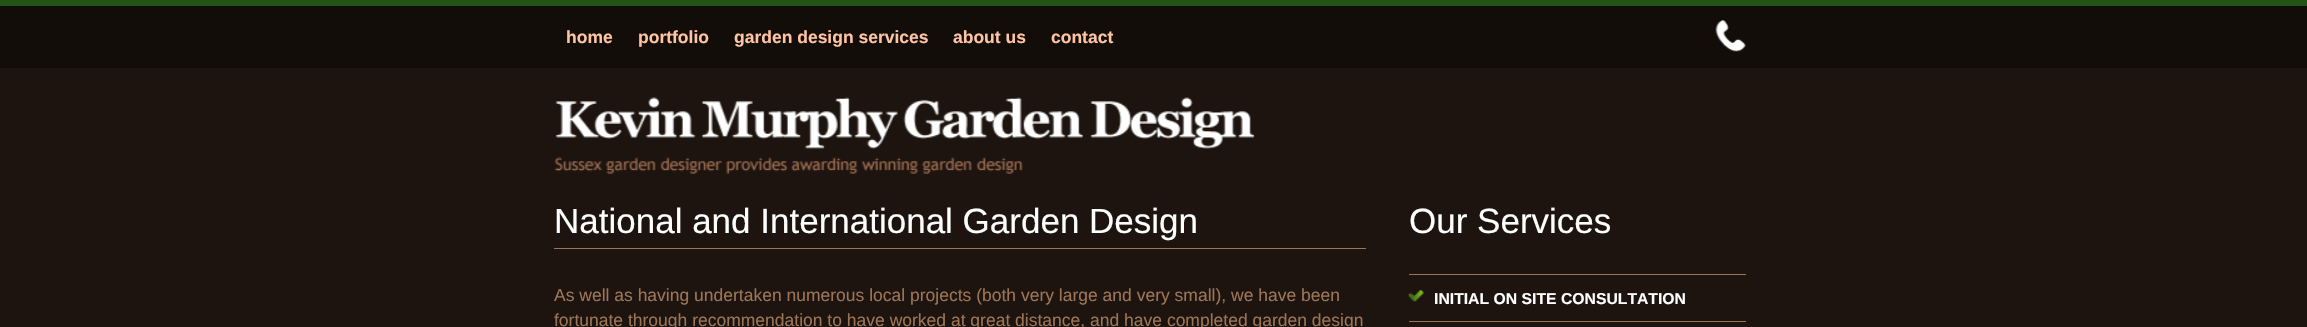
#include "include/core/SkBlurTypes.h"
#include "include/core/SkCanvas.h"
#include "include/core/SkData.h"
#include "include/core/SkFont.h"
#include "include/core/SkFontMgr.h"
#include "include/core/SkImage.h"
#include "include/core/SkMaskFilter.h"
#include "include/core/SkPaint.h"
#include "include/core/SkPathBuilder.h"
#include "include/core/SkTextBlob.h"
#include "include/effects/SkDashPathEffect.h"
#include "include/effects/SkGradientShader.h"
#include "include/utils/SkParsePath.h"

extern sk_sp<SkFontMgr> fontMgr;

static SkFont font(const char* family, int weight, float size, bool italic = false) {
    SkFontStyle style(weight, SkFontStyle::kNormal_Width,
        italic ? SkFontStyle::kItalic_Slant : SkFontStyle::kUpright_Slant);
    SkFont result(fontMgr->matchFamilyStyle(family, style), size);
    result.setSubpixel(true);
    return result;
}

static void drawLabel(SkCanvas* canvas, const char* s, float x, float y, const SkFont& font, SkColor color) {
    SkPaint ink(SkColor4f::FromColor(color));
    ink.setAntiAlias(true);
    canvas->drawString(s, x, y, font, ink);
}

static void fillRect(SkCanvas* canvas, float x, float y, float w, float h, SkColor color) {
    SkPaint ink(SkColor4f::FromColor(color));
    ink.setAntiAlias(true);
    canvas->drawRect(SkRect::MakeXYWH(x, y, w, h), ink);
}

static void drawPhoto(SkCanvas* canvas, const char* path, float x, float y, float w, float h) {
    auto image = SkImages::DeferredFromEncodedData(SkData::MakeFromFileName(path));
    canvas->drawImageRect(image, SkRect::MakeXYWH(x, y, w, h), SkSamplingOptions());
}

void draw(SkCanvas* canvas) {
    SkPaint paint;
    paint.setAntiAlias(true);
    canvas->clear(0xFF1D140F);
    fillRect(canvas, 0, 0, 2307, 6, 0xFF225415);
    fillRect(canvas, 0, 6, 2307, 62, 0xFF130D0A);
    SkFont font1 = font("Liberation Sans", 700, 17.5f);
    drawLabel(canvas, "home", 566, 43, font1, 0xFFFFC4A2);
    drawLabel(canvas, "portfolio", 638, 43, font1, 0xFFFFC4A2);
    drawLabel(canvas, "garden design services", 734, 43, font1, 0xFFFFC4A2);
    drawLabel(canvas, "about us", 953, 43, font1, 0xFFFFC4A2);
    drawLabel(canvas, "contact", 1051, 43, font1, 0xFFFFC4A2);
    drawPhoto(canvas, "assets/img1.png", 1715, 20, 31, 32);
    drawPhoto(canvas, "assets/img2.png", 554, 97, 701, 77);
    fillRect(canvas, 554, 248, 812, 1, 0xFF9C7557);
    SkFont font2 = font("Liberation Sans", 400, 35);
    drawLabel(canvas, "National and International Garden Design", 554, 233, font2, 0xFFFFFFFF);
    SkFont font3 = font("Liberation Sans", 400, 17.5f);
    drawLabel(canvas, "As well as having undertaken numerous local projects (both very large and very small), we have been", 554, 301, font3, 0xFF9C7557);
    drawLabel(canvas, "fortunate through recommendation to have worked at great distance, and have completed garden design", 554, 326, font3, 0xFF9C7557);
    fillRect(canvas, 1409, 274, 337, 1, 0xFF9C7557);
    drawLabel(canvas, "Our Services", 1409, 233, font2, 0xFFFFFFFF);
    fillRect(canvas, 1409, 321, 337, 1, 0xFF9C7557);
    drawPhoto(canvas, "assets/img3.png", 1408, 290, 16, 12);
    SkFont font4 = font("Liberation Sans", 700, 15.75f);
    drawLabel(canvas, "INITIAL ON SITE CONSULTATION", 1434, 304, font4, 0xFFFFFFFF);
}
